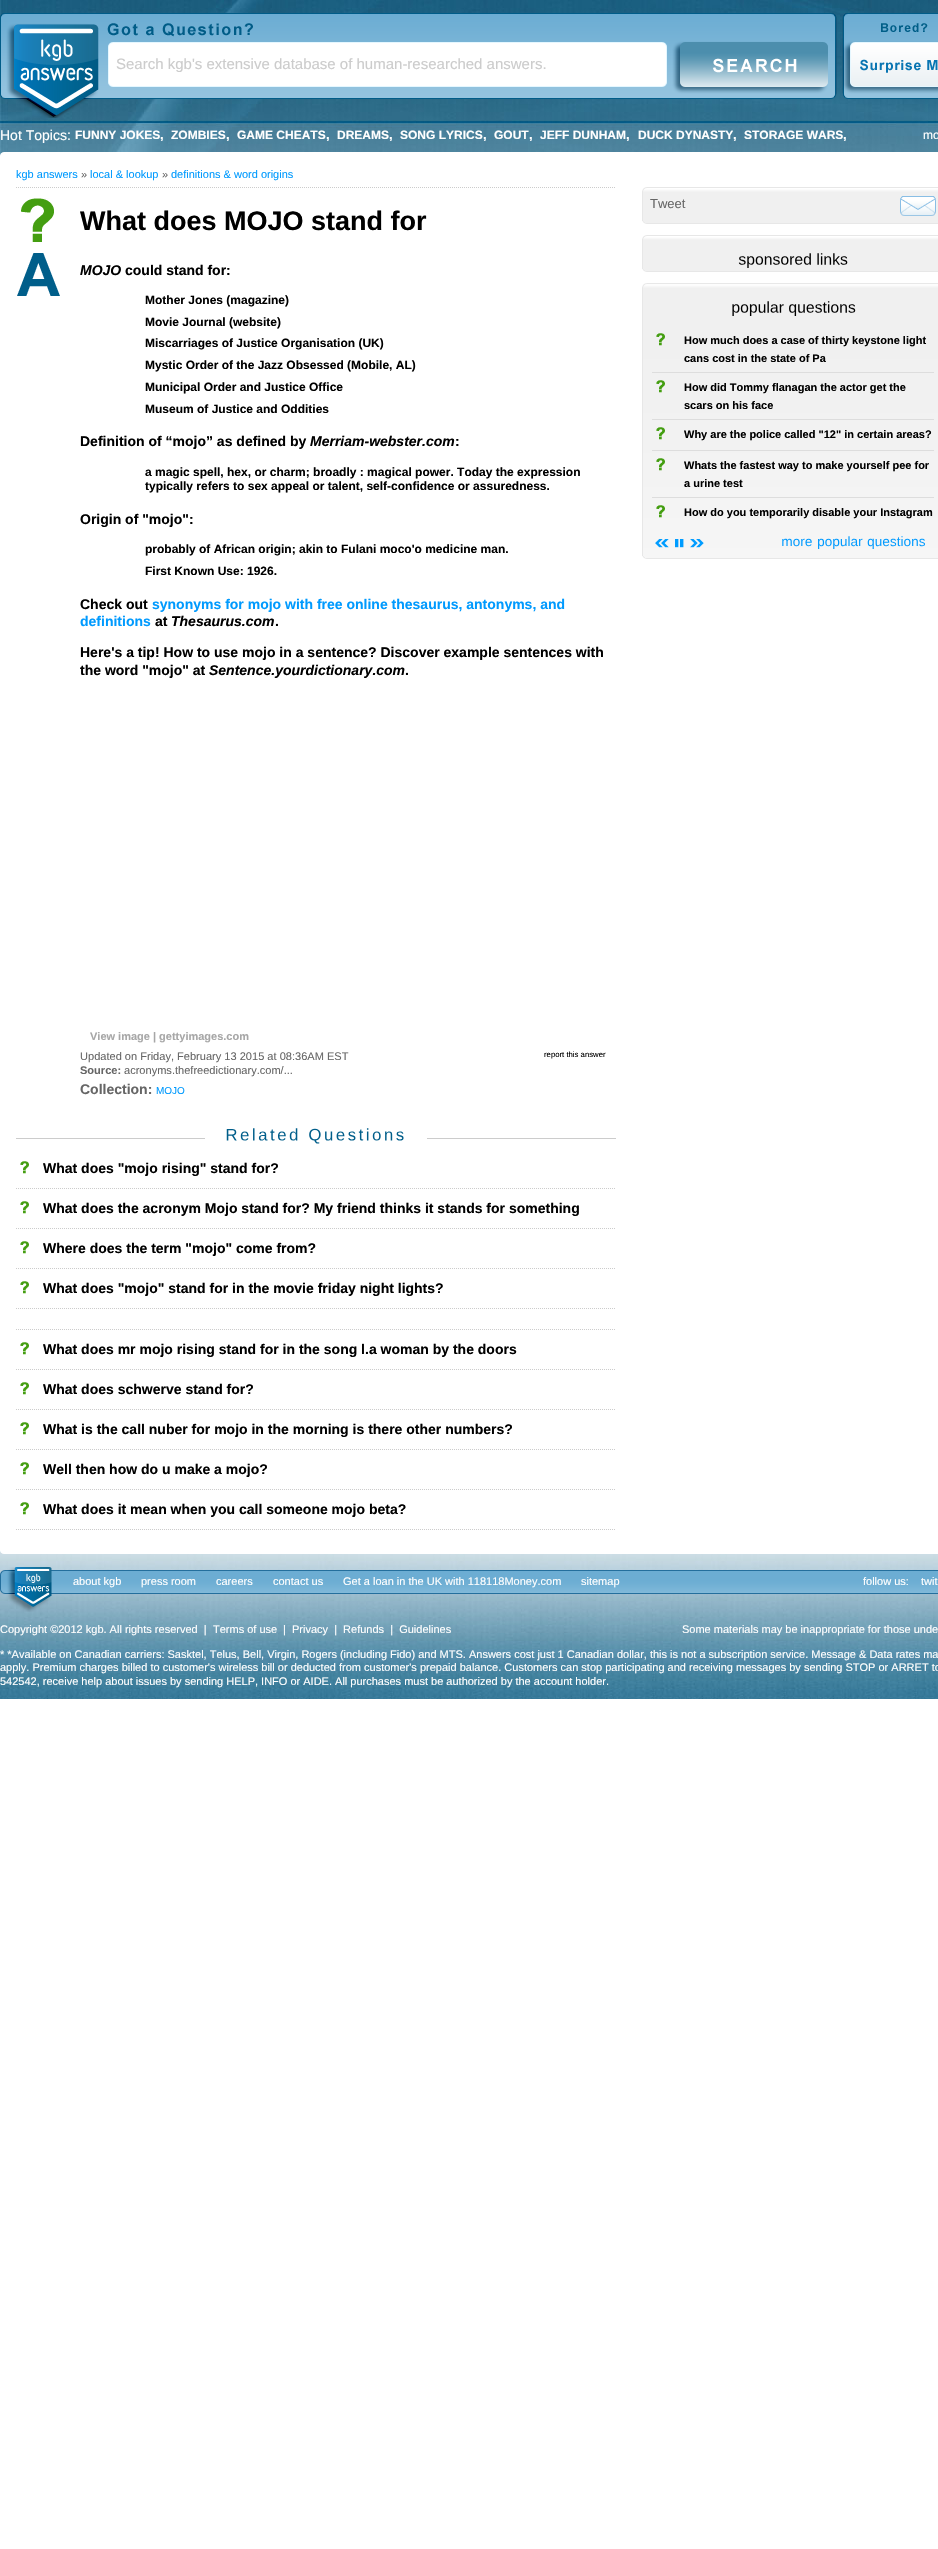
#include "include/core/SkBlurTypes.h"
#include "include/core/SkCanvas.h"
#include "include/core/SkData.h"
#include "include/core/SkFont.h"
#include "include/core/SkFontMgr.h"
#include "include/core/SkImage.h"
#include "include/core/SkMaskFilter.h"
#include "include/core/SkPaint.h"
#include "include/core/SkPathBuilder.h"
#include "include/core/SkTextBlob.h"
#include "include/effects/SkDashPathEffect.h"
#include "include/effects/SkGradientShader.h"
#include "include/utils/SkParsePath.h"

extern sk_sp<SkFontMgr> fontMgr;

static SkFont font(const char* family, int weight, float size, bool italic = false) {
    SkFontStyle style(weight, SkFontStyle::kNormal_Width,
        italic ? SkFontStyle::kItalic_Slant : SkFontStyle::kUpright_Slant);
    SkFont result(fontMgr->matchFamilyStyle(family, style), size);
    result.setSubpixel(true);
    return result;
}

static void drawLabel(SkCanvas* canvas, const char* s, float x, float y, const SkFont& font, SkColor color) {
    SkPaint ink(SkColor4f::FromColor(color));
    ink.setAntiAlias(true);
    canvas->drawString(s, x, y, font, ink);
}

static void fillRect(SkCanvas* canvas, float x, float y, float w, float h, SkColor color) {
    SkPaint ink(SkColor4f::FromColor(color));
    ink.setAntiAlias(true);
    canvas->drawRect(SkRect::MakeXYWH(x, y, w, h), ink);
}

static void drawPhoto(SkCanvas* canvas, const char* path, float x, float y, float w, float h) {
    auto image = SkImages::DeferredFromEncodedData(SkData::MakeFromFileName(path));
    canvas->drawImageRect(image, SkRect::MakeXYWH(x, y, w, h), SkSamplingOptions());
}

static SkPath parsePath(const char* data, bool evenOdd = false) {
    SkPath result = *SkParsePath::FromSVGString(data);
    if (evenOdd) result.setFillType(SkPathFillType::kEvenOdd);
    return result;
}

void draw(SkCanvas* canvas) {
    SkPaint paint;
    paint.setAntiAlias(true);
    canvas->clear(0xFFFFFFFF);
    drawPhoto(canvas, "assets/img1.png", 0, 0, 938, 1699);
    drawPhoto(canvas, "assets/img2.png", 0, 13, 938, 105);
    SkFont font1 = font("Liberation Sans", 400, 15);
    drawLabel(canvas, "Search kgb's extensive database of human-researched answers.", 116, 69, font1, 0xFFCCCCCC);
    SkFont font2 = font("Liberation Sans", 400, 14);
    drawLabel(canvas, "Hot Topics:", 0, 140, font2, 0xFFFFFFFF);
    SkFont font3 = font("Liberation Sans", 700, 12);
    drawLabel(canvas, "FUNNY JOKES", 75, 139, font3, 0xFFFFFFFF);
    SkFont font4 = font("Liberation Sans", 700, 13);
    drawLabel(canvas, ",", 160, 139, font4, 0xFFFFFFFF);
    drawLabel(canvas, "ZOMBIES", 171, 139, font3, 0xFFFFFFFF);
    drawLabel(canvas, ",", 226, 139, font4, 0xFFFFFFFF);
    drawLabel(canvas, "GAME CHEATS", 237, 139, font3, 0xFFFFFFFF);
    drawLabel(canvas, ",", 326, 139, font4, 0xFFFFFFFF);
    drawLabel(canvas, "DREAMS", 337, 139, font3, 0xFFFFFFFF);
    drawLabel(canvas, ",", 389, 139, font4, 0xFFFFFFFF);
    drawLabel(canvas, "SONG LYRICS", 400, 139, font3, 0xFFFFFFFF);
    drawLabel(canvas, ",", 483, 139, font4, 0xFFFFFFFF);
    drawLabel(canvas, "GOUT", 494, 139, font3, 0xFFFFFFFF);
    drawLabel(canvas, ",", 529, 139, font4, 0xFFFFFFFF);
    drawLabel(canvas, "JEFF DUNHAM", 540, 139, font3, 0xFFFFFFFF);
    drawLabel(canvas, ",", 626, 139, font4, 0xFFFFFFFF);
    drawLabel(canvas, "DUCK DYNASTY", 638, 139, font3, 0xFFFFFFFF);
    drawLabel(canvas, ",", 733, 139, font4, 0xFFFFFFFF);
    drawLabel(canvas, "STORAGE WARS", 744, 139, font3, 0xFFFFFFFF);
    drawLabel(canvas, ",", 843, 139, font4, 0xFFFFFFFF);
    SkFont font5 = font("Liberation Sans", 400, 12);
    drawLabel(canvas, "mo", 923, 139, font5, 0xFFFFFFFF);
    drawPhoto(canvas, "assets/img3.png", 0, 152, 938, 4);
    fillRect(canvas, 0, 156, 938, 1394, 0xFFFFFFFF);
    SkFont font6 = font("Liberation Sans", 400, 11);
    drawLabel(canvas, "kgb answers", 16, 178, font6, 0xFF009AFE);
    drawLabel(canvas, "»", 81, 178, font6, 0xFF666666);
    drawLabel(canvas, "local & lookup", 90, 178, font6, 0xFF009AFE);
    drawLabel(canvas, "»", 162, 178, font6, 0xFF666666);
    drawLabel(canvas, "definitions & word origins", 171, 178, font6, 0xFF009AFE);
    paint.setStroke(true);
    paint.setStrokeWidth(1);
    paint.setColor(0xFFCCCCCC);
    paint.setPathEffect(SkDashPathEffect::Make({{1, 1}}, 0));
    canvas->drawPath(parsePath("M16 187.5H616"), paint);
    paint.setPathEffect(nullptr);
    drawPhoto(canvas, "assets/img4.png", 21, 198, 33, 44);
    SkFont font7 = font("Liberation Sans", 700, 27);
    drawLabel(canvas, "What does MOJO stand for", 80, 230, font7, 0xFF000000);
    drawPhoto(canvas, "assets/img5.png", 17, 253, 43, 43);
    SkFont font8 = font("Liberation Sans", 700, 14, true);
    drawLabel(canvas, "MOJO", 80, 275, font8, 0xFF000000);
    SkFont font9 = font("Liberation Sans", 700, 14);
    drawLabel(canvas, "could stand for:", 125, 275, font9, 0xFF000000);
    drawLabel(canvas, "Mother Jones (magazine)", 145, 304, font3, 0xFF000000);
    drawLabel(canvas, "Movie Journal (website)", 145, 326, font3, 0xFF000000);
    drawLabel(canvas, "Miscarriages of Justice Organisation (UK)", 145, 347, font3, 0xFF000000);
    drawLabel(canvas, "Mystic Order of the Jazz Obsessed (Mobile, AL)", 145, 369, font3, 0xFF000000);
    drawLabel(canvas, "Municipal Order and Justice Office", 145, 391, font3, 0xFF000000);
    drawLabel(canvas, "Museum of Justice and Oddities", 145, 413, font3, 0xFF000000);
    drawLabel(canvas, "Definition of “mojo” as defined by", 80, 446, font9, 0xFF000000);
    drawLabel(canvas, "Merriam-webster.com", 310, 446, font8, 0xFF000000);
    drawLabel(canvas, ":", 455, 446, font9, 0xFF000000);
    drawLabel(canvas, "a magic spell, hex, or charm; broadly : magical power. Today the expression", 145, 476, font3, 0xFF000000);
    drawLabel(canvas, "typically refers to sex appeal or talent, self-confidence or assuredness.", 145, 490, font3, 0xFF000000);
    drawLabel(canvas, "Origin of \"mojo\":", 80, 524, font9, 0xFF000000);
    drawLabel(canvas, "probably of African origin; akin to Fulani moco'o medicine man.", 145, 553, font3, 0xFF000000);
    drawLabel(canvas, "First Known Use: 1926.", 145, 575, font3, 0xFF000000);
    drawLabel(canvas, "Check out", 80, 609, font9, 0xFF000000);
    drawLabel(canvas, "synonyms for mojo with free online thesaurus, antonyms, and", 152, 609, font9, 0xFF009AFE);
    drawLabel(canvas, "definitions", 80, 626, font9, 0xFF009AFE);
    drawLabel(canvas, "at", 155, 626, font9, 0xFF000000);
    drawLabel(canvas, "Thesaurus.com", 171, 626, font8, 0xFF000000);
    drawLabel(canvas, ".", 275, 626, font9, 0xFF000000);
    drawLabel(canvas, "Here's a tip! How to use mojo in a sentence? Discover example sentences with", 80, 657, font9, 0xFF000000);
    drawLabel(canvas, "the word \"mojo\" at", 80, 675, font9, 0xFF000000);
    drawLabel(canvas, "Sentence.yourdictionary.com", 209, 675, font8, 0xFF000000);
    drawLabel(canvas, ".", 405, 675, font9, 0xFF000000);
    SkFont font10 = font("Liberation Sans", 700, 11);
    drawLabel(canvas, "View image | gettyimages.com", 90, 1040, font10, 0xFFA7A7A7);
    SkFont font11 = font("Liberation Sans", 400, 11.05f);
    drawLabel(canvas, "Updated on Friday, February 13 2015 at 08:36AM EST", 80, 1060, font11, 0xFF666666);
    SkFont font12 = font("Liberation Sans", 400, 7.75f);
    drawLabel(canvas, "report this answer", 544, 1057, font12, 0xFF000000);
    SkFont font13 = font("Liberation Sans", 700, 11.05f);
    drawLabel(canvas, "Source:", 80, 1074, font13, 0xFF666666);
    drawLabel(canvas, "acronyms.thefreedictionary.com/...", 124, 1074, font11, 0xFF666666);
    drawLabel(canvas, "Collection:", 80, 1094, font9, 0xFF666666);
    SkFont font14 = font("Liberation Sans", 400, 10);
    drawLabel(canvas, "MOJO", 156, 1094, font14, 0xFF009AFE);
    fillRect(canvas, 16, 1138, 600, 1, 0xFFCCCCCC);
    fillRect(canvas, 205, 1138, 222, 1, 0xFFFFFFFF);
    drawPhoto(canvas, "assets/img6.png", 226, 1128, 72, 13);
    drawPhoto(canvas, "assets/img7.png", 309, 1128, 95, 16);
    drawPhoto(canvas, "assets/img8.png", 20, 1161, 9, 13);
    drawLabel(canvas, "What does \"mojo rising\" stand for?", 43, 1173, font9, 0xFF000000);
    paint.setPathEffect(SkDashPathEffect::Make({{1, 1}}, 0));
    canvas->drawPath(parsePath("M16 1188.5H616"), paint);
    paint.setPathEffect(nullptr);
    drawPhoto(canvas, "assets/img8.png", 20, 1201, 9, 13);
    drawLabel(canvas, "What does the acronym Mojo stand for? My friend thinks it stands for something", 43, 1213, font9, 0xFF000000);
    paint.setPathEffect(SkDashPathEffect::Make({{1, 1}}, 0));
    canvas->drawPath(parsePath("M16 1228.5H616"), paint);
    paint.setPathEffect(nullptr);
    drawPhoto(canvas, "assets/img8.png", 20, 1241, 9, 13);
    drawLabel(canvas, "Where does the term \"mojo\" come from?", 43, 1253, font9, 0xFF000000);
    paint.setPathEffect(SkDashPathEffect::Make({{1, 1}}, 0));
    canvas->drawPath(parsePath("M16 1268.5H616"), paint);
    paint.setPathEffect(nullptr);
    drawPhoto(canvas, "assets/img8.png", 20, 1281, 9, 13);
    drawLabel(canvas, "What does \"mojo\" stand for in the movie friday night lights?", 43, 1293, font9, 0xFF000000);
    paint.setPathEffect(SkDashPathEffect::Make({{1, 1}}, 0));
    canvas->drawPath(parsePath("M16 1308.5H616"), paint);
    paint.setPathEffect(nullptr);
    paint.setPathEffect(SkDashPathEffect::Make({{1, 1}}, 0));
    canvas->drawPath(parsePath("M16 1329.5H616"), paint);
    paint.setPathEffect(nullptr);
    drawPhoto(canvas, "assets/img8.png", 20, 1342, 9, 13);
    drawLabel(canvas, "What does mr mojo rising stand for in the song l.a woman by the doors", 43, 1354, font9, 0xFF000000);
    paint.setPathEffect(SkDashPathEffect::Make({{1, 1}}, 0));
    canvas->drawPath(parsePath("M16 1369.5H616"), paint);
    paint.setPathEffect(nullptr);
    drawPhoto(canvas, "assets/img8.png", 20, 1382, 9, 13);
    drawLabel(canvas, "What does schwerve stand for?", 43, 1394, font9, 0xFF000000);
    paint.setPathEffect(SkDashPathEffect::Make({{1, 1}}, 0));
    canvas->drawPath(parsePath("M16 1409.5H616"), paint);
    paint.setPathEffect(nullptr);
    drawPhoto(canvas, "assets/img8.png", 20, 1422, 9, 13);
    drawLabel(canvas, "What is the call nuber for mojo in the morning is there other numbers?", 43, 1434, font9, 0xFF000000);
    paint.setPathEffect(SkDashPathEffect::Make({{1, 1}}, 0));
    canvas->drawPath(parsePath("M16 1449.5H616"), paint);
    paint.setPathEffect(nullptr);
    drawPhoto(canvas, "assets/img8.png", 20, 1462, 9, 13);
    drawLabel(canvas, "Well then how do u make a mojo?", 43, 1474, font9, 0xFF000000);
    paint.setPathEffect(SkDashPathEffect::Make({{1, 1}}, 0));
    canvas->drawPath(parsePath("M16 1489.5H616"), paint);
    paint.setPathEffect(nullptr);
    drawPhoto(canvas, "assets/img8.png", 20, 1502, 9, 13);
    drawLabel(canvas, "What does it mean when you call someone mojo beta?", 43, 1514, font9, 0xFF000000);
    paint.setPathEffect(SkDashPathEffect::Make({{1, 1}}, 0));
    canvas->drawPath(parsePath("M16 1529.5H616"), paint);
    paint.setPathEffect(nullptr);
    drawPhoto(canvas, "assets/img9.png", 642, 187, 296, 36);
    SkFont font15 = font("Liberation Sans", 400, 13);
    drawLabel(canvas, "Tweet", 650, 208, font15, 0xFF666666);
    drawPhoto(canvas, "assets/img10.png", 900, 196, 36, 20);
    drawPhoto(canvas, "assets/img11.png", 642, 221, 296, 3);
    drawPhoto(canvas, "assets/img12.png", 642, 235, 296, 36);
    drawPhoto(canvas, "assets/img13.png", 738, 253, 73, 15);
    drawPhoto(canvas, "assets/img14.png", 817, 253, 31, 12);
    drawPhoto(canvas, "assets/img11.png", 642, 269, 296, 3);
    drawPhoto(canvas, "assets/img15.png", 642, 283, 296, 275);
    drawPhoto(canvas, "assets/img16.png", 732, 301, 52, 15);
    drawPhoto(canvas, "assets/img17.png", 789, 301, 67, 15);
    drawPhoto(canvas, "assets/img18.png", 656, 333, 9, 13);
    drawLabel(canvas, "How much does a case of thirty keystone light", 684, 344, font10, 0xFF000000);
    drawLabel(canvas, "cans cost in the state of Pa", 684, 362, font10, 0xFF000000);
    fillRect(canvas, 652, 372, 282, 1, 0xFFDDDDDD);
    drawPhoto(canvas, "assets/img19.png", 656, 380, 9, 13);
    drawLabel(canvas, "How did Tommy flanagan the actor get the", 684, 391, font10, 0xFF000000);
    drawLabel(canvas, "scars on his face", 684, 409, font10, 0xFF000000);
    fillRect(canvas, 652, 419, 282, 1, 0xFFDDDDDD);
    drawPhoto(canvas, "assets/img20.png", 656, 427, 9, 13);
    drawLabel(canvas, "Why are the police called \"12\" in certain areas?", 684, 438, font10, 0xFF000000);
    fillRect(canvas, 652, 450, 282, 1, 0xFFDDDDDD);
    drawPhoto(canvas, "assets/img21.png", 656, 458, 9, 13);
    drawLabel(canvas, "Whats the fastest way to make yourself pee for", 684, 469, font10, 0xFF000000);
    drawLabel(canvas, "a urine test", 684, 487, font10, 0xFF000000);
    fillRect(canvas, 652, 497, 282, 1, 0xFFDDDDDD);
    drawPhoto(canvas, "assets/img22.png", 656, 505, 9, 13);
    drawLabel(canvas, "How do you temporarily disable your Instagram", 684, 516, font10, 0xFF000000);
    drawPhoto(canvas, "assets/img23.png", 655, 539, 14, 9);
    drawPhoto(canvas, "assets/img24.png", 675, 539, 9, 9);
    drawPhoto(canvas, "assets/img25.png", 690, 539, 14, 9);
    drawPhoto(canvas, "assets/img26.png", 782, 538, 30, 9);
    drawPhoto(canvas, "assets/img27.png", 818, 536, 45, 13);
    drawPhoto(canvas, "assets/img28.png", 867, 536, 58, 13);
    drawPhoto(canvas, "assets/img29.png", 642, 556, 296, 3);
    drawPhoto(canvas, "assets/img30.png", 0, 1550, 938, 4);
    drawPhoto(canvas, "assets/img31.png", 0, 1567, 938, 45);
    drawLabel(canvas, "about kgb", 73, 1585, font6, 0xFFFFFFFF);
    drawLabel(canvas, "press room", 141, 1585, font6, 0xFFFFFFFF);
    drawLabel(canvas, "careers", 216, 1585, font6, 0xFFFFFFFF);
    drawLabel(canvas, "contact us", 273, 1585, font6, 0xFFFFFFFF);
    drawLabel(canvas, "Get a loan in the UK with 118118Money.com", 343, 1585, font6, 0xFFFFFFFF);
    drawLabel(canvas, "sitemap", 581, 1585, font6, 0xFFFFFFFF);
    drawLabel(canvas, "follow us:", 863, 1585, font6, 0xFFFFFFFF);
    drawLabel(canvas, "twit", 921, 1585, font6, 0xFFFFFFFF);
    drawLabel(canvas, "Copyright ©2012 kgb. All rights reserved  |", 0, 1633, font6, 0xFFFFFFFF);
    drawLabel(canvas, "Terms of use", 213, 1633, font6, 0xFFFFFFFF);
    drawLabel(canvas, "|  Privacy  |  Refunds  |  Guidelines", 283, 1633, font6, 0xFFFFFFFF);
    drawLabel(canvas, "Some materials may be inappropriate for those unde", 682, 1633, font6, 0xFFFFFFFF);
    drawLabel(canvas, "* *Available on Canadian carriers: Sasktel, Telus, Bell, Virgin, Rogers (including Fido) and MTS. Answers cost just 1 Canadian dollar, this is not a subscription service. Message & Data rates ma", 0, 1658, font6, 0xFFFFFFFF);
    drawLabel(canvas, "apply. Premium charges billed to customer's wireless bill or deducted from customer's prepaid balance. Customers can stop participating and receiving messages by sending STOP or ARRET to", 0, 1671, font6, 0xFFFFFFFF);
    drawLabel(canvas, "542542, receive help about issues by sending HELP, INFO or AIDE. All purchases must be authorized by the account holder.", 0, 1685, font6, 0xFFFFFFFF);
}
